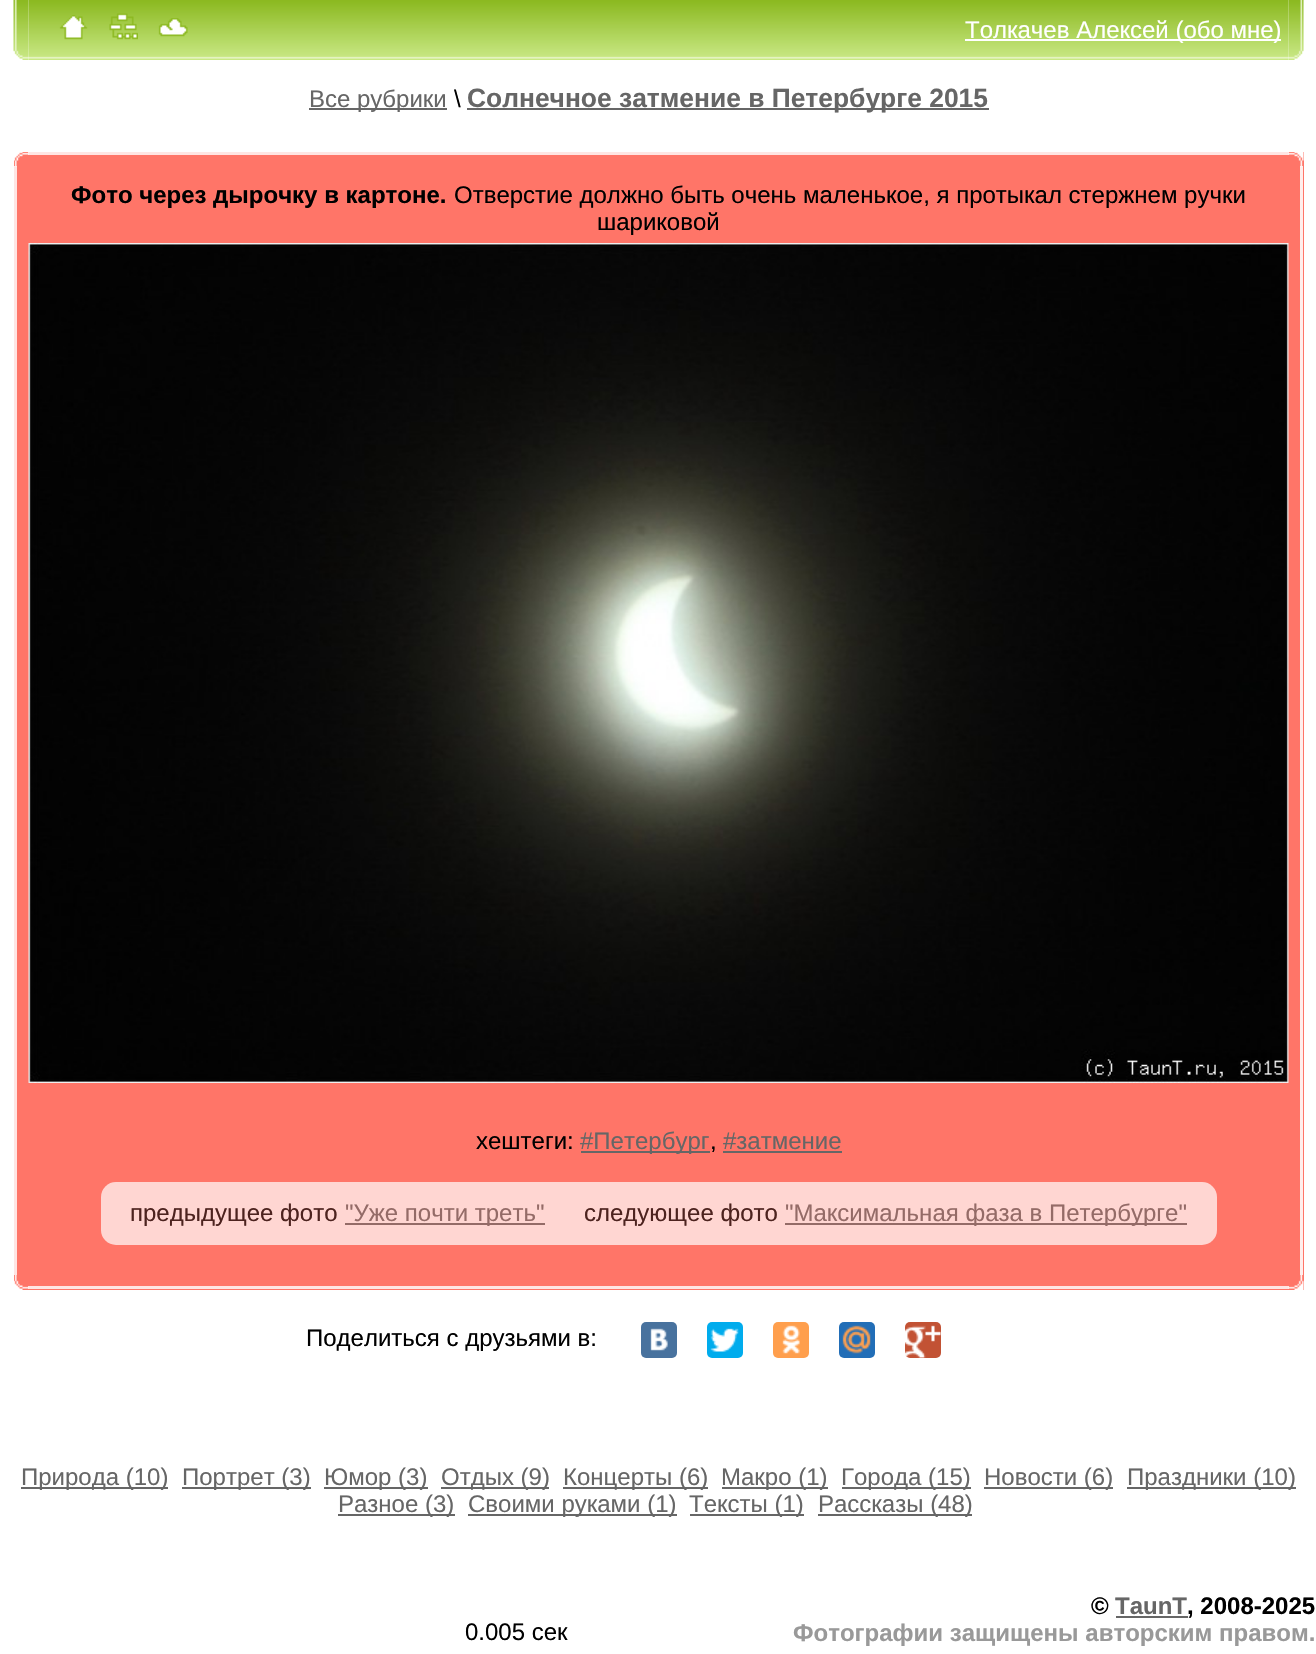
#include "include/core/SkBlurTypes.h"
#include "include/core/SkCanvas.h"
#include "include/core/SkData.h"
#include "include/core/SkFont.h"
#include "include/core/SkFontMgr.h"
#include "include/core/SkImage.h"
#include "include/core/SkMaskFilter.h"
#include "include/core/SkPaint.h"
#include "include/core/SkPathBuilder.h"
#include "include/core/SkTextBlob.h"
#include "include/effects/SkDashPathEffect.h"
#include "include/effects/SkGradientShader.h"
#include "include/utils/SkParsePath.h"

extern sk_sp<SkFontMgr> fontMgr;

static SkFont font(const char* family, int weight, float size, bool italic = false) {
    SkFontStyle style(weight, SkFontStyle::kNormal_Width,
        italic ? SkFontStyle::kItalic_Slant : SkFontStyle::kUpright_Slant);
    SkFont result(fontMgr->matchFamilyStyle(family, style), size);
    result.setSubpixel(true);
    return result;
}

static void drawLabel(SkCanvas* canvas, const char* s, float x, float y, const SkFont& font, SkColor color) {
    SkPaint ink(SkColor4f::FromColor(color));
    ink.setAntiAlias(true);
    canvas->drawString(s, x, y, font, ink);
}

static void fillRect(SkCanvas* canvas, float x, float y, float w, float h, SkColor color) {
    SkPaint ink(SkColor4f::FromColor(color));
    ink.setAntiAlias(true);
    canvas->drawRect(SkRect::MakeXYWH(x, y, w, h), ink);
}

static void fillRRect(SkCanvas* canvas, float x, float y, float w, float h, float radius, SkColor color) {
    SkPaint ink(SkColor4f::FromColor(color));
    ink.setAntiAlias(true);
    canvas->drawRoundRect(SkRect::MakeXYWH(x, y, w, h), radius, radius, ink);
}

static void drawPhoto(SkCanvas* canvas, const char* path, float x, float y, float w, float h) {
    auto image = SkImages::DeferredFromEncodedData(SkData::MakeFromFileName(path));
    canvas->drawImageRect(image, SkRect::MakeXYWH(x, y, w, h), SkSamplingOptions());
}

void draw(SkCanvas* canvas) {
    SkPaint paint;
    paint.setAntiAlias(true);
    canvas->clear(0xFFFFFFFF);
    drawPhoto(canvas, "assets/img1.png", 13, 0, 16, 60);
    drawPhoto(canvas, "assets/img2.png", 28, 0, 419, 60);
    drawPhoto(canvas, "assets/img3.png", 59, 15, 29, 25);
    drawPhoto(canvas, "assets/img4.png", 109, 13, 29, 27);
    drawPhoto(canvas, "assets/img5.png", 158, 18, 30, 19);
    drawPhoto(canvas, "assets/img6.png", 447, 0, 842, 60);
    fillRect(canvas, 965, 39, 316, 2, 0xFFFFFFFF);
    SkFont font1 = font("Liberation Sans", 400, 24);
    drawLabel(canvas, "Толкачев Алексей (обо мне)", 965, 38, font1, 0xFFFFFFFF);
    drawPhoto(canvas, "assets/img7.png", 1288, 0, 16, 60);
    fillRect(canvas, 309, 108, 138, 2, 0xFF666666);
    drawLabel(canvas, "Все рубрики", 309, 107, font1, 0xFF666666);
    drawLabel(canvas, "\\", 454, 107, font1, 0xFF000000);
    fillRect(canvas, 467, 108, 522, 2, 0xFF666666);
    SkFont font2 = font("Liberation Sans", 700, 26.4f);
    drawLabel(canvas, "Солнечное затмение в Петербурге 2015", 467, 107, font2, 0xFF666666);
    fillRect(canvas, 14, 152, 1290, 1138, 0xFFFF7568);
    drawPhoto(canvas, "assets/img8.png", 14, 152, 15, 15);
    fillRect(canvas, 28, 152, 1261, 3, 0xCFFFFFFF);
    drawPhoto(canvas, "assets/img9.png", 1288, 152, 16, 15);
    fillRect(canvas, 14, 166, 3, 1109, 0xCFFFFFFF);
    SkFont font3 = font("Liberation Sans", 700, 24);
    drawLabel(canvas, "Фото через дырочку в картоне.", 71, 203, font3, 0xFF000000);
    drawLabel(canvas, "Отверстие должно быть очень маленькое, я протыкал стержнем ручки", 454, 203, font1, 0xFF000000);
    drawLabel(canvas, "шариковой", 597, 230, font1, 0xFF000000);
    drawPhoto(canvas, "assets/img10.png", 28, 243, 1261, 840);
    drawLabel(canvas, "хештеги:", 476, 1149, font1, 0xFF000000);
    fillRect(canvas, 581, 1151, 129, 2, 0xFF666666);
    drawLabel(canvas, "#Петербург", 580, 1149, font1, 0xFF666666);
    drawLabel(canvas, ",", 710, 1149, font1, 0xFF000000);
    drawLabel(canvas, "#затмение", 723, 1149, font1, 0xFF666666);
    fillRect(canvas, 723, 1151, 119, 2, 0xFF666666);
    fillRRect(canvas, 101, 1182, 1116, 63, 15, 0xFFFFD6D2);
    drawLabel(canvas, "предыдущее фото", 130, 1221, font1, 0xFF4D231F);
    fillRect(canvas, 345, 1223, 200, 2, 0xFF946B67);
    drawLabel(canvas, "\"Уже почти треть\"", 345, 1221, font1, 0xFF946B67);
    drawLabel(canvas, "следующее фото", 584, 1221, font1, 0xFF4D231F);
    fillRect(canvas, 785, 1223, 402, 2, 0xFF946B67);
    drawLabel(canvas, "\"Максимальная фаза в Петербурге\"", 785, 1221, font1, 0xFF946B67);
    fillRect(canvas, 1300, 166, 3, 1109, 0xDEFFFFFF);
    drawPhoto(canvas, "assets/img11.png", 14, 1275, 15, 15);
    fillRect(canvas, 28, 1286, 1261, 3, 0xCFFFFFFF);
    drawPhoto(canvas, "assets/img12.png", 1288, 1275, 16, 15);
    drawLabel(canvas, "Поделиться с друзьями в:", 306, 1346, font1, 0xFF000000);
    fillRRect(canvas, 641, 1322, 36, 36, 5, 0xFF48729E);
    drawPhoto(canvas, "assets/img13.png", 650, 1328, 18, 23);
    fillRRect(canvas, 707, 1322, 36, 36, 5, 0xFF00ACED);
    drawPhoto(canvas, "assets/img14.png", 710, 1328, 29, 24);
    fillRRect(canvas, 773, 1322, 36, 36, 5, 0xFFFF9F4D);
    drawPhoto(canvas, "assets/img15.png", 782, 1325, 18, 29);
    fillRRect(canvas, 839, 1322, 36, 36, 5, 0xFF226EB7);
    drawPhoto(canvas, "assets/img16.png", 842, 1325, 29, 29);
    fillRRect(canvas, 905, 1322, 36, 36, 5, 0xFFC25234);
    drawPhoto(canvas, "assets/img17.png", 905, 1325, 36, 33);
    fillRect(canvas, 21, 1487, 147, 2, 0xFF666666);
    drawLabel(canvas, "Природа (10)", 21, 1485, font1, 0xFF666666);
    fillRect(canvas, 182, 1487, 129, 2, 0xFF666666);
    drawLabel(canvas, "Портрет (3)", 182, 1485, font1, 0xFF666666);
    fillRect(canvas, 324, 1487, 104, 2, 0xFF666666);
    drawLabel(canvas, "Юмор (3)", 324, 1485, font1, 0xFF666666);
    fillRect(canvas, 441, 1487, 108, 2, 0xFF666666);
    drawLabel(canvas, "Отдых (9)", 441, 1485, font1, 0xFF666666);
    fillRect(canvas, 563, 1487, 145, 2, 0xFF666666);
    drawLabel(canvas, "Концерты (6)", 563, 1485, font1, 0xFF666666);
    fillRect(canvas, 722, 1487, 106, 2, 0xFF666666);
    drawLabel(canvas, "Макро (1)", 721, 1485, font1, 0xFF666666);
    fillRect(canvas, 842, 1487, 129, 2, 0xFF666666);
    drawLabel(canvas, "Города (15)", 841, 1485, font1, 0xFF666666);
    fillRect(canvas, 984, 1487, 129, 2, 0xFF666666);
    drawLabel(canvas, "Новости (6)", 984, 1485, font1, 0xFF666666);
    fillRect(canvas, 1127, 1487, 169, 2, 0xFF666666);
    drawLabel(canvas, "Праздники (10)", 1127, 1485, font1, 0xFF666666);
    fillRect(canvas, 338, 1514, 117, 2, 0xFF666666);
    drawLabel(canvas, "Разное (3)", 338, 1512, font1, 0xFF666666);
    fillRect(canvas, 468, 1514, 209, 2, 0xFF666666);
    drawLabel(canvas, "Своими руками (1)", 468, 1512, font1, 0xFF666666);
    fillRect(canvas, 690, 1514, 114, 2, 0xFF666666);
    drawLabel(canvas, "Тексты (1)", 689, 1512, font1, 0xFF666666);
    fillRect(canvas, 818, 1514, 154, 2, 0xFF666666);
    drawLabel(canvas, "Рассказы (48)", 818, 1512, font1, 0xFF666666);
    drawLabel(canvas, "0.005 cек", 465, 1640, font1, 0xFF000000);
    drawLabel(canvas, "©", 1091, 1614, font3, 0xFF000000);
    drawLabel(canvas, "TaunT", 1115, 1614, font3, 0xFF666666);
    fillRect(canvas, 1116, 1616, 72, 2, 0xFF666666);
    drawLabel(canvas, ", 2008-2025", 1187, 1614, font3, 0xFF000000);
    drawLabel(canvas, "Фотографии защищены авторским правом.", 793, 1641, font3, 0xFF999999);
}
